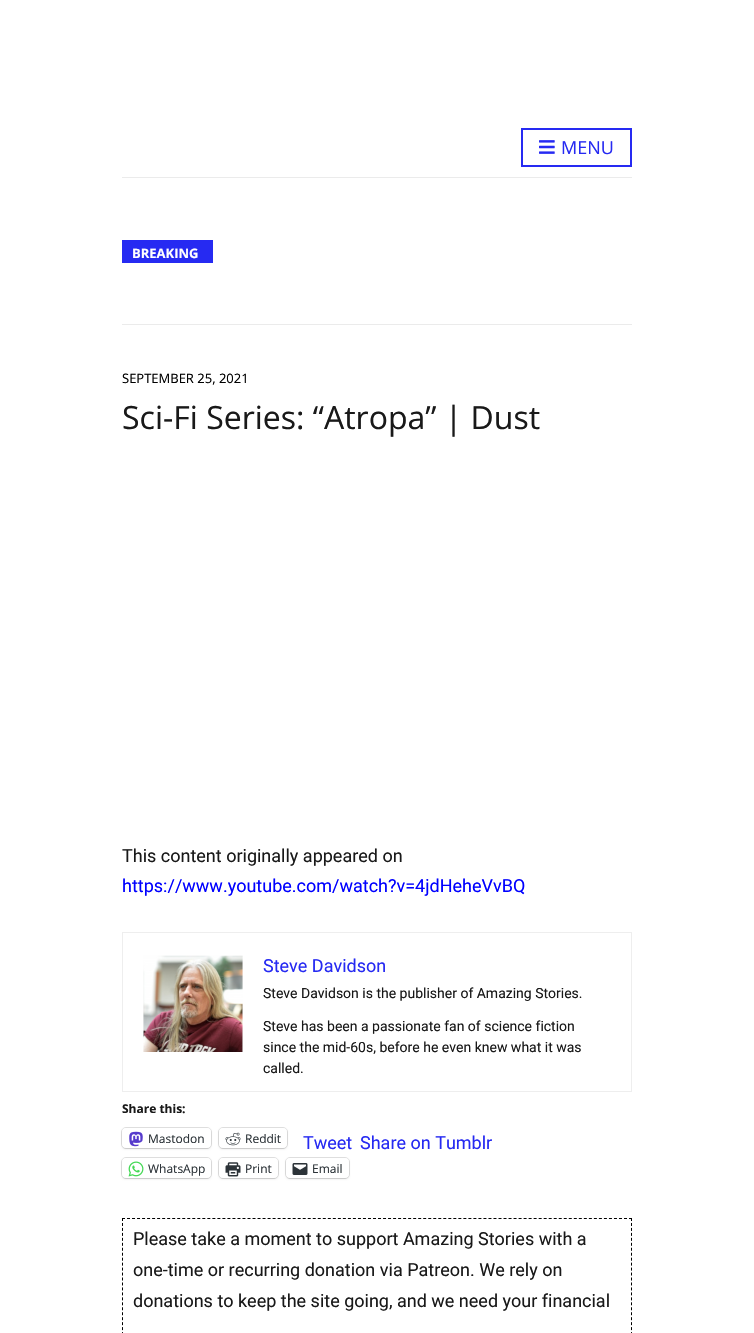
#include "include/core/SkBlurTypes.h"
#include "include/core/SkCanvas.h"
#include "include/core/SkData.h"
#include "include/core/SkFont.h"
#include "include/core/SkFontMgr.h"
#include "include/core/SkImage.h"
#include "include/core/SkMaskFilter.h"
#include "include/core/SkPaint.h"
#include "include/core/SkPathBuilder.h"
#include "include/core/SkTextBlob.h"
#include "include/effects/SkDashPathEffect.h"
#include "include/effects/SkGradientShader.h"
#include "include/utils/SkParsePath.h"

extern sk_sp<SkFontMgr> fontMgr;

static SkFont font(const char* family, int weight, float size, bool italic = false) {
    SkFontStyle style(weight, SkFontStyle::kNormal_Width,
        italic ? SkFontStyle::kItalic_Slant : SkFontStyle::kUpright_Slant);
    SkFont result(fontMgr->matchFamilyStyle(family, style), size);
    result.setSubpixel(true);
    return result;
}

static void drawLabel(SkCanvas* canvas, const char* s, float x, float y, const SkFont& font, SkColor color) {
    SkPaint ink(SkColor4f::FromColor(color));
    ink.setAntiAlias(true);
    canvas->drawString(s, x, y, font, ink);
}

static void fillRect(SkCanvas* canvas, float x, float y, float w, float h, SkColor color) {
    SkPaint ink(SkColor4f::FromColor(color));
    ink.setAntiAlias(true);
    canvas->drawRect(SkRect::MakeXYWH(x, y, w, h), ink);
}

static void fillRRect(SkCanvas* canvas, float x, float y, float w, float h, float radius, SkColor color) {
    SkPaint ink(SkColor4f::FromColor(color));
    ink.setAntiAlias(true);
    canvas->drawRoundRect(SkRect::MakeXYWH(x, y, w, h), radius, radius, ink);
}

static void drawPhoto(SkCanvas* canvas, const char* path, float x, float y, float w, float h) {
    auto image = SkImages::DeferredFromEncodedData(SkData::MakeFromFileName(path));
    canvas->drawImageRect(image, SkRect::MakeXYWH(x, y, w, h), SkSamplingOptions());
}

static SkPath parsePath(const char* data, bool evenOdd = false) {
    SkPath result = *SkParsePath::FromSVGString(data);
    if (evenOdd) result.setFillType(SkPathFillType::kEvenOdd);
    return result;
}

void draw(SkCanvas* canvas) {
    SkPaint paint;
    paint.setAntiAlias(true);
    canvas->clear(0xFFFFFFFF);
    fillRect(canvas, 122, 177, 510, 1, 0xFFEBEBEB);
    paint.setStroke(true);
    paint.setStrokeWidth(2);
    paint.setColor(0xFF262AF2);
    canvas->drawRect(SkRect::MakeXYWH(522, 129, 109, 37), paint);
    drawPhoto(canvas, "assets/img1.png", 539, 140, 16, 14);
    SkFont font1 = font("Open Sans", 400, 18);
    drawLabel(canvas, "MENU", 561, 154, font1, 0xFF262AF2);
    fillRect(canvas, 122, 324, 510, 1, 0xFFEBEBEB);
    fillRect(canvas, 122, 240, 91, 23, 0xFF262AF2);
    SkFont font2 = font("Open Sans", 700, 13);
    drawLabel(canvas, "BREAKING", 132, 258, font2, 0xFFFFFFFF);
    SkFont font3 = font("Open Sans", 400, 13);
    drawLabel(canvas, "SEPTEMBER 25, 2021", 122, 383, font3, 0xFF000000);
    SkFont font4 = font("Open Sans", 400, 32);
    drawLabel(canvas, "Sci-Fi Series: “Atropa” | Dust", 122, 429, font4, 0xFF191919);
    SkFont font5 = font("Roboto", 400, 18);
    drawLabel(canvas, "This content originally appeared on", 122, 862, font5, 0xFF191919);
    drawLabel(canvas, "https://www.youtube.com/watch?v=4jdHeheVvBQ", 122, 892, font5, 0xFF0000FF);
    paint.setStrokeWidth(1);
    paint.setColor(0xFFEEEEEE);
    canvas->drawRect(SkRect::MakeXYWH(122.5f, 932.5f, 509, 159), paint);
    drawPhoto(canvas, "assets/img2.png", 143, 955, 100, 97);
    drawLabel(canvas, "Steve Davidson", 263, 972, font5, 0xFF262AF2);
    SkFont font6 = font("Roboto", 400, 14);
    drawLabel(canvas, "Steve Davidson is the publisher of Amazing Stories.", 263, 998, font6, 0xFF191919);
    drawLabel(canvas, "Steve has been a passionate fan of science fiction", 263, 1031, font6, 0xFF191919);
    drawLabel(canvas, "since the mid-60s, before he even knew what it was", 263, 1052, font6, 0xFF191919);
    drawLabel(canvas, "called.", 263, 1073, font6, 0xFF191919);
    SkFont font7 = font("Open Sans", 700, 12);
    drawLabel(canvas, "Share this:", 122, 1113, font7, 0xFF191919);
    paint.setColor(0xFFE0E0E0);
    canvas->drawRoundRect(SkRect::MakeXYWH(121.5f, 1127.5f, 90, 21), 4.5f, 4.5f, paint);
    paint.setStroke(false);
    paint.setColor(0x1F000000);
    paint.setMaskFilter(SkMaskFilter::MakeBlur(kNormal_SkBlurStyle, 1));
    canvas->drawRoundRect(SkRect::MakeXYWH(122, 1129, 89, 20), 4, 4, paint);
    paint.setMaskFilter(nullptr);
    fillRRect(canvas, 122, 1128, 89, 20, 4, 0xFFFFFFFF);
    drawPhoto(canvas, "assets/img3.png", 129, 1131, 14, 16);
    SkFont font8 = font("Open Sans", 400, 12);
    drawLabel(canvas, "Mastodon", 148, 1143, font8, 0xFF2C3338);
    paint.setStroke(true);
    paint.setColor(0xFFE0E0E0);
    canvas->drawRoundRect(SkRect::MakeXYWH(218.5f, 1127.5f, 69, 21), 4.5f, 4.5f, paint);
    paint.setStroke(false);
    paint.setColor(0x1F000000);
    paint.setMaskFilter(SkMaskFilter::MakeBlur(kNormal_SkBlurStyle, 1));
    canvas->drawRoundRect(SkRect::MakeXYWH(219, 1129, 68, 20), 4, 4, paint);
    paint.setMaskFilter(nullptr);
    fillRRect(canvas, 219, 1128, 68, 20, 4, 0xFFFFFFFF);
    drawPhoto(canvas, "assets/img4.png", 225, 1132, 16, 14);
    drawLabel(canvas, "Reddit", 245, 1143, font8, 0xFF2C3338);
    drawLabel(canvas, "Tweet", 303, 1149, font5, 0xFF262AF2);
    drawLabel(canvas, "Share on Tumblr", 360, 1149, font5, 0xFF262AF2);
    paint.setStroke(true);
    paint.setColor(0xFFE0E0E0);
    canvas->drawRoundRect(SkRect::MakeXYWH(121.5f, 1157.5f, 90, 21), 4.5f, 4.5f, paint);
    paint.setStroke(false);
    paint.setColor(0x1F000000);
    paint.setMaskFilter(SkMaskFilter::MakeBlur(kNormal_SkBlurStyle, 1));
    canvas->drawRoundRect(SkRect::MakeXYWH(122, 1159, 89, 20), 4, 4, paint);
    paint.setMaskFilter(nullptr);
    fillRRect(canvas, 122, 1158, 89, 20, 4, 0xFFFFFFFF);
    drawPhoto(canvas, "assets/img5.png", 128, 1161, 16, 16);
    drawLabel(canvas, "WhatsApp", 148, 1173, font8, 0xFF2C3338);
    paint.setStroke(true);
    paint.setColor(0xFFE0E0E0);
    canvas->drawRoundRect(SkRect::MakeXYWH(218.5f, 1157.5f, 60, 21), 4.5f, 4.5f, paint);
    paint.setStroke(false);
    paint.setColor(0x1F000000);
    paint.setMaskFilter(SkMaskFilter::MakeBlur(kNormal_SkBlurStyle, 1));
    canvas->drawRoundRect(SkRect::MakeXYWH(219, 1159, 59, 20), 4, 4, paint);
    paint.setMaskFilter(nullptr);
    fillRRect(canvas, 219, 1158, 59, 20, 4, 0xFFFFFFFF);
    drawPhoto(canvas, "assets/img6.png", 225, 1162, 16, 15);
    drawLabel(canvas, "Print", 245, 1173, font8, 0xFF2C3338);
    paint.setStroke(true);
    paint.setColor(0xFFE0E0E0);
    canvas->drawRoundRect(SkRect::MakeXYWH(285.5f, 1157.5f, 64, 21), 4.5f, 4.5f, paint);
    paint.setStroke(false);
    paint.setColor(0x1F000000);
    paint.setMaskFilter(SkMaskFilter::MakeBlur(kNormal_SkBlurStyle, 1));
    canvas->drawRoundRect(SkRect::MakeXYWH(286, 1159, 63, 20), 4, 4, paint);
    paint.setMaskFilter(nullptr);
    fillRRect(canvas, 286, 1158, 63, 20, 4, 0xFFFFFFFF);
    drawPhoto(canvas, "assets/img7.png", 292, 1163, 16, 12);
    drawLabel(canvas, "Email", 312, 1173, font8, 0xFF2C3338);
    paint.setStroke(true);
    paint.setColor(0xFF000000);
    paint.setPathEffect(SkDashPathEffect::Make({{3, 2.02f}}, 0));
    canvas->drawPath(parsePath("M122 1218.5H632"), paint);
    paint.setPathEffect(nullptr);
    paint.setPathEffect(SkDashPathEffect::Make({{3, 1.96f}}, 0));
    canvas->drawPath(parsePath("M631.5 1218V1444"), paint);
    paint.setPathEffect(nullptr);
    paint.setPathEffect(SkDashPathEffect::Make({{3, 1.96f}}, 0));
    canvas->drawPath(parsePath("M122.5 1218V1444"), paint);
    paint.setPathEffect(nullptr);
    drawLabel(canvas, "Please take a moment to support Amazing Stories with a", 133, 1245, font5, 0xFF191919);
    drawLabel(canvas, "one-time or recurring donation via Patreon. We rely on", 133, 1276, font5, 0xFF191919);
    drawLabel(canvas, "donations to keep the site going, and we need your financial", 133, 1307, font5, 0xFF191919);
}
